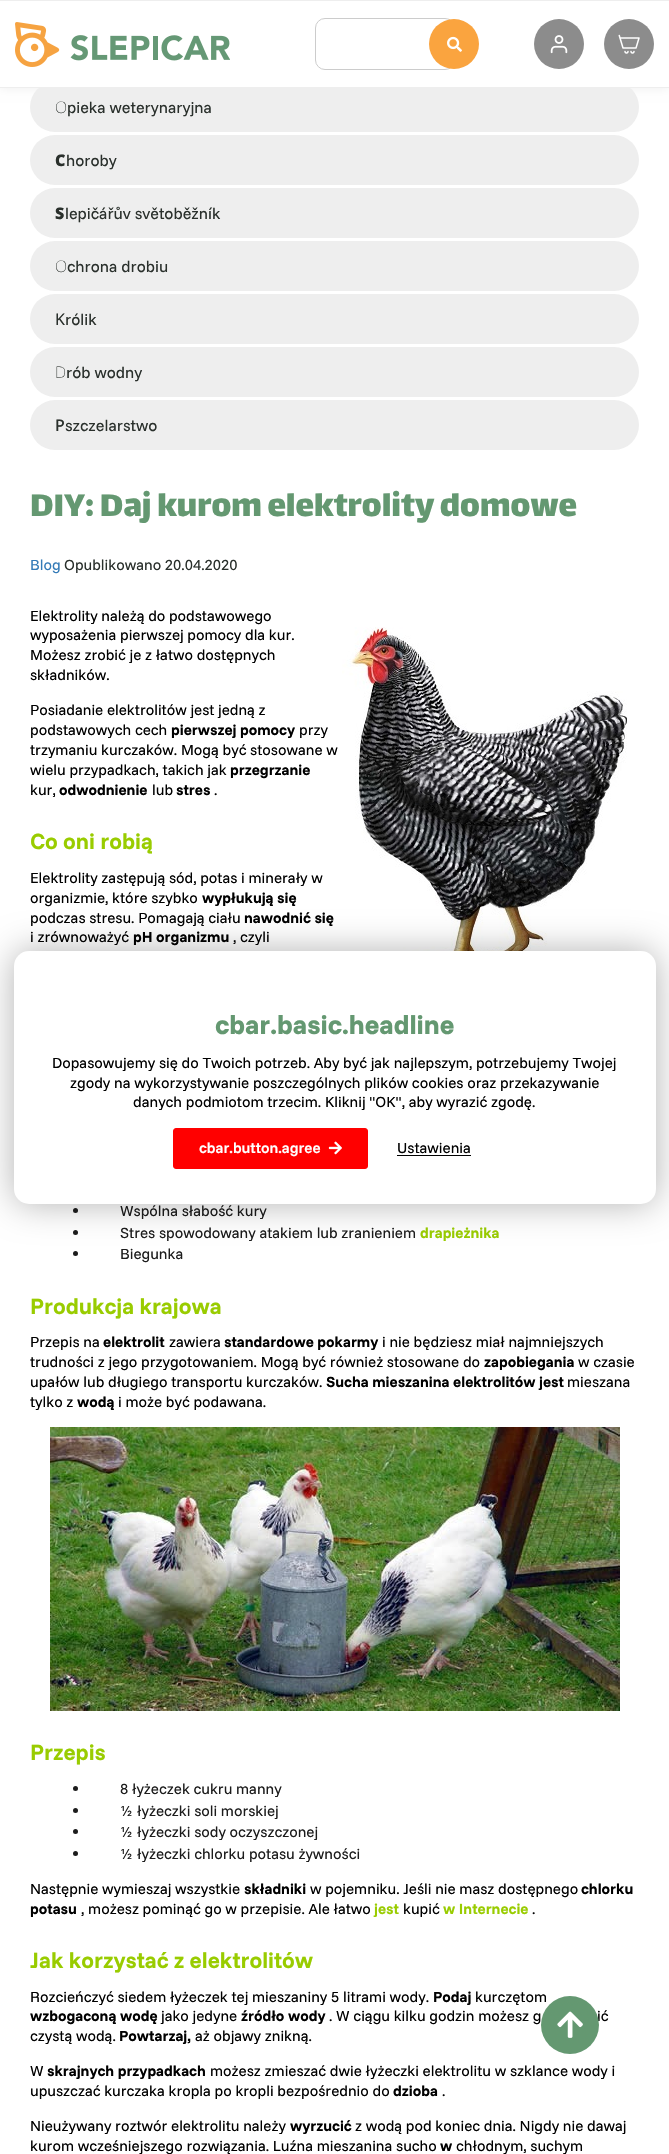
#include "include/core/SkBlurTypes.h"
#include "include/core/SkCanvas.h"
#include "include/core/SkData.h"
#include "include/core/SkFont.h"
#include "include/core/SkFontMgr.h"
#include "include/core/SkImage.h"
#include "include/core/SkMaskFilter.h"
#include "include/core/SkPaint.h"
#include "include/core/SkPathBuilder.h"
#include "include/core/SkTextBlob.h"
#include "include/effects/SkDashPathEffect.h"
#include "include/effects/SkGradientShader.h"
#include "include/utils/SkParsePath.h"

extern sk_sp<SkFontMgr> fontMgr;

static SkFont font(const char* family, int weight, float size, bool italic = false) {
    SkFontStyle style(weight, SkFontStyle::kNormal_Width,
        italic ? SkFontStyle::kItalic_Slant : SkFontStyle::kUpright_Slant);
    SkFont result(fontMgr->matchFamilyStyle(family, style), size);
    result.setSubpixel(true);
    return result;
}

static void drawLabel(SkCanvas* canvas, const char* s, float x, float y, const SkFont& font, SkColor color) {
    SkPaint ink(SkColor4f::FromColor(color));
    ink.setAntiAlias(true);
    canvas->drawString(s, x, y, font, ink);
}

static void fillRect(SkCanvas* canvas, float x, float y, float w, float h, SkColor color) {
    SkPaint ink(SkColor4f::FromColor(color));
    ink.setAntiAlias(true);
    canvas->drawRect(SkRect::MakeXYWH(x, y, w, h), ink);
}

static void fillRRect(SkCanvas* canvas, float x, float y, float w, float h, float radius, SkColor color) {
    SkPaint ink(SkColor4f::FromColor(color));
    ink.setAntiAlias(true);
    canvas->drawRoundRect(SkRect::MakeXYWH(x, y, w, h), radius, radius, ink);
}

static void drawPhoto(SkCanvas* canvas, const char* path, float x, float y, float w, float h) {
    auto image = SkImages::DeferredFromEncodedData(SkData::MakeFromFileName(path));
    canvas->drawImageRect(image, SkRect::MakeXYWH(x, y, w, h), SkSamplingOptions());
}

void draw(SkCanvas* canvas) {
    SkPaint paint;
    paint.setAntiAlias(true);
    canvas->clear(0xFFFFFFFF);
    fillRRect(canvas, 30, 82, 609, 50, 25, 0xFFEEEEEE);
    paint.setColor(0xFFEEEEEE);
    paint.setMaskFilter(SkMaskFilter::MakeBlur(kNormal_SkBlurStyle, 5));
    canvas->drawRect(SkRect::MakeXYWH(0, 0, 669, 88), paint);
    paint.setMaskFilter(nullptr);
    fillRect(canvas, 0, 1, 669, 86, 0xFFFFFFFF);
    fillRect(canvas, 0, 0, 669, 1, 0xFFEEEEEE);
    fillRect(canvas, 0, 87, 669, 1, 0xFFEEEEEE);
    drawPhoto(canvas, "assets/img1.png", 15, 22, 215, 45);
    paint.setStroke(true);
    paint.setStrokeWidth(1);
    paint.setColor(0xFFCCCCCC);
    canvas->drawRoundRect(SkRect::MakeXYWH(315.5f, 18.5f, 139, 51), 9.5f, 9.5f, paint);
    paint.setStroke(false);
    paint.setColor(0xFFFAA43F);
    canvas->drawCircle(454, 44, 25, paint);
    drawPhoto(canvas, "assets/img2.png", 447, 36, 15, 16);
    paint.setColor(0xFF8C8C8C);
    canvas->drawCircle(559, 44, 25, paint);
    drawPhoto(canvas, "assets/img3.png", 550, 35, 18, 19);
    canvas->drawCircle(629, 44, 25, paint);
    drawPhoto(canvas, "assets/img4.png", 618, 34, 22, 20);
    SkFont font1 = font("Noto Sans", 100, 16);
    drawLabel(canvas, "O", 55, 113, font1, 0xFF2A302C);
    SkFont font2 = font("Funnel Sans", 400, 16);
    drawLabel(canvas, "pieka weterynaryjna", 67, 113, font2, 0xFF2A302C);
    fillRRect(canvas, 30, 135, 609, 50, 25, 0xFFEEEEEE);
    SkFont font3 = font("Noto Sans", 900, 16);
    drawLabel(canvas, "C", 55, 166, font3, 0xFF2A302C);
    drawLabel(canvas, "horoby", 66, 166, font2, 0xFF2A302C);
    fillRRect(canvas, 30, 188, 609, 50, 25, 0xFFEEEEEE);
    drawLabel(canvas, "S", 55, 219, font3, 0xFF2A302C);
    drawLabel(canvas, "lepičářův světoběžník", 65, 219, font2, 0xFF2A302C);
    fillRRect(canvas, 30, 241, 609, 50, 25, 0xFFEEEEEE);
    drawLabel(canvas, "O", 55, 272, font1, 0xFF2A302C);
    drawLabel(canvas, "chrona drobiu", 67, 272, font2, 0xFF2A302C);
    fillRRect(canvas, 30, 294, 609, 50, 25, 0xFFEEEEEE);
    SkFont font4 = font("Noto Sans", 400, 16);
    drawLabel(canvas, "K", 55, 325, font4, 0xFF2A302C);
    drawLabel(canvas, "rólik", 65, 325, font2, 0xFF2A302C);
    fillRRect(canvas, 30, 347, 609, 50, 25, 0xFFEEEEEE);
    drawLabel(canvas, "D", 55, 378, font1, 0xFF2A302C);
    drawLabel(canvas, "rób wodny", 66, 378, font2, 0xFF2A302C);
    fillRRect(canvas, 30, 400, 609, 50, 25, 0xFFEEEEEE);
    SkFont font5 = font("Noto Sans", 500, 16);
    drawLabel(canvas, "P", 55, 431, font5, 0xFF2A302C);
    drawLabel(canvas, "szczelarstwo", 65, 431, font2, 0xFF2A302C);
    SkFont font6 = font("Lalezar", 400, 37.5f);
    drawLabel(canvas, "DIY: Daj kurom elektrolity domowe", 30, 516, font6, 0xFF649871);
    SkFont font7 = font("Funnel Sans", 400, 15);
    drawLabel(canvas, "Blog", 30, 570, font7, 0xFF337AB7);
    drawLabel(canvas, "Opublikowano 20.04.2020", 64, 570, font7, 0xFF2A302C);
    drawLabel(canvas, "Elektrolity należą do podstawowego", 30, 621, font7, 0xFF000000);
    drawLabel(canvas, "wyposażenia pierwszej pomocy dla kur.", 30, 640, font7, 0xFF000000);
    drawLabel(canvas, "Możesz zrobić je z łatwo dostępnych", 30, 660, font7, 0xFF000000);
    drawLabel(canvas, "składników.", 30, 680, font7, 0xFF000000);
    drawPhoto(canvas, "assets/img5.png", 342, 627, 285, 324);
    drawLabel(canvas, "Posiadanie elektrolitów jest jedną z", 30, 715, font7, 0xFF000000);
    drawLabel(canvas, "podstawowych cech", 30, 735, font7, 0xFF000000);
    SkFont font8 = font("Funnel Sans", 700, 15);
    drawLabel(canvas, "pierwszej pomocy", 171, 735, font8, 0xFF000000);
    drawLabel(canvas, "przy", 299, 735, font7, 0xFF000000);
    drawLabel(canvas, "trzymaniu kurczaków. Mogą być stosowane w", 30, 755, font7, 0xFF000000);
    drawLabel(canvas, "wielu przypadkach, takich jak", 30, 775, font7, 0xFF000000);
    drawLabel(canvas, "przegrzanie", 230, 775, font8, 0xFF000000);
    drawLabel(canvas, "kur,", 30, 795, font7, 0xFF000000);
    drawLabel(canvas, "odwodnienie", 59, 795, font8, 0xFF000000);
    drawLabel(canvas, "lub", 152, 795, font7, 0xFF000000);
    drawLabel(canvas, "stres", 176, 795, font8, 0xFF000000);
    drawLabel(canvas, ".", 214, 795, font7, 0xFF000000);
    SkFont font9 = font("Funnel Sans", 700, 22.5f);
    drawLabel(canvas, "Co oni robią", 30, 849, font9, 0xFF99CC00);
    drawLabel(canvas, "Elektrolity zastępują sód, potas i minerały w", 30, 883, font7, 0xFF000000);
    drawLabel(canvas, "organizmie, które szybko", 30, 903, font7, 0xFF000000);
    drawLabel(canvas, "wypłukują się", 202, 903, font8, 0xFF000000);
    drawLabel(canvas, "podczas stresu. Pomagają ciału", 30, 923, font7, 0xFF000000);
    drawLabel(canvas, "nawodnić się", 244, 923, font8, 0xFF000000);
    drawLabel(canvas, "i zrównoważyć", 30, 942, font7, 0xFF000000);
    drawLabel(canvas, "pH organizmu", 133, 942, font8, 0xFF000000);
    drawLabel(canvas, ", czyli", 233, 942, font7, 0xFF000000);
    paint.setColor(0xFF1C1C1C);
    canvas->drawCircle(75.5f, 1210.5f, 2.5f, paint);
    drawLabel(canvas, "Wspólna słabość kury", 120, 1216, font7, 0xFF1C1C1C);
    canvas->drawCircle(75.5f, 1232.5f, 2.5f, paint);
    drawLabel(canvas, "Stres spowodowany atakiem lub zranieniem", 120, 1238, font7, 0xFF1C1C1C);
    drawLabel(canvas, "drapieżnika", 420, 1238, font8, 0xFF99CC00);
    canvas->drawCircle(75.5f, 1253.5f, 2.5f, paint);
    drawLabel(canvas, "Biegunka", 120, 1259, font7, 0xFF1C1C1C);
    drawLabel(canvas, "Produkcja krajowa", 30, 1314, font9, 0xFF99CC00);
    drawLabel(canvas, "Przepis na", 30, 1347, font7, 0xFF000000);
    drawLabel(canvas, "elektrolit", 103, 1347, font8, 0xFF000000);
    drawLabel(canvas, "zawiera", 169, 1347, font7, 0xFF000000);
    drawLabel(canvas, "standardowe pokarmy", 224, 1347, font8, 0xFF000000);
    drawLabel(canvas, "i nie będziesz miał najmniejszych", 382, 1347, font7, 0xFF000000);
    drawLabel(canvas, "trudności z jego przygotowaniem. Mogą być również stosowane do", 30, 1367, font7, 0xFF000000);
    drawLabel(canvas, "zapobiegania", 484, 1367, font8, 0xFF000000);
    drawLabel(canvas, "w czasie", 578, 1367, font7, 0xFF000000);
    drawLabel(canvas, "upałów lub długiego transportu kurczaków.", 30, 1387, font7, 0xFF000000);
    drawLabel(canvas, "Sucha mieszanina elektrolitów jest", 326, 1387, font8, 0xFF000000);
    drawLabel(canvas, "mieszana", 567, 1387, font7, 0xFF000000);
    drawLabel(canvas, "tylko z", 30, 1407, font7, 0xFF000000);
    drawLabel(canvas, "wodą", 77, 1407, font8, 0xFF000000);
    drawLabel(canvas, "i może być podawana.", 118, 1407, font7, 0xFF000000);
    drawPhoto(canvas, "assets/img6.png", 50, 1427, 570, 284);
    drawLabel(canvas, "Przepis", 30, 1760, font9, 0xFF99CC00);
    canvas->drawCircle(75.5f, 1788.5f, 2.5f, paint);
    drawLabel(canvas, "8 łyżeczek cukru manny", 120, 1794, font7, 0xFF1C1C1C);
    canvas->drawCircle(75.5f, 1810.5f, 2.5f, paint);
    drawLabel(canvas, "½ łyżeczki soli morskiej", 120, 1816, font7, 0xFF1C1C1C);
    canvas->drawCircle(75.5f, 1831.5f, 2.5f, paint);
    drawLabel(canvas, "½ łyżeczki sody oczyszczonej", 120, 1837, font7, 0xFF1C1C1C);
    canvas->drawCircle(75.5f, 1853.5f, 2.5f, paint);
    drawLabel(canvas, "½ łyżeczki chlorku potasu żywności", 120, 1859, font7, 0xFF1C1C1C);
    drawLabel(canvas, "Następnie wymieszaj wszystkie", 30, 1894, font7, 0xFF000000);
    drawLabel(canvas, "składniki", 244, 1894, font8, 0xFF000000);
    drawLabel(canvas, "w pojemniku. Jeśli nie masz dostępnego", 310, 1894, font7, 0xFF000000);
    drawLabel(canvas, "chlorku", 581, 1894, font8, 0xFF000000);
    drawLabel(canvas, "potasu", 30, 1914, font8, 0xFF000000);
    drawLabel(canvas, ", możesz pominąć go w przepisie. Ale łatwo", 81, 1914, font7, 0xFF000000);
    drawLabel(canvas, "jest", 374, 1914, font8, 0xFF99CC00);
    drawLabel(canvas, "kupić", 403, 1914, font7, 0xFF000000);
    drawLabel(canvas, "w Internecie", 443, 1914, font8, 0xFF99CC00);
    drawLabel(canvas, ".", 532, 1914, font7, 0xFF000000);
    drawLabel(canvas, "Jak korzystać z elektrolitów", 30, 1968, font9, 0xFF99CC00);
    drawLabel(canvas, "Rozcieńczyć siedem łyżeczek tej mieszaniny 5 litrami wody.", 30, 2002, font7, 0xFF000000);
    drawLabel(canvas, "Podaj", 433, 2002, font8, 0xFF000000);
    drawLabel(canvas, "kurczętom", 475, 2002, font7, 0xFF000000);
    drawLabel(canvas, "wzbogaconą wodę", 30, 2021, font8, 0xFF000000);
    drawLabel(canvas, "jako jedyne", 161, 2021, font7, 0xFF000000);
    drawLabel(canvas, "źródło wody", 241, 2021, font8, 0xFF000000);
    drawLabel(canvas, ". W ciągu kilku godzin możesz g", 329, 2021, font7, 0xFF000000);
    drawLabel(canvas, "ić", 597, 2021, font7, 0xFF000000);
    drawLabel(canvas, "czystą wodą.", 30, 2041, font7, 0xFF000000);
    drawLabel(canvas, "Powtarzaj,", 119, 2041, font8, 0xFF000000);
    drawLabel(canvas, "aż objawy znikną.", 195, 2041, font7, 0xFF000000);
    drawLabel(canvas, "W", 30, 2076, font7, 0xFF000000);
    drawLabel(canvas, "skrajnych przypadkach", 47, 2076, font8, 0xFF000000);
    drawLabel(canvas, "możesz zmieszać dwie łyżeczki elektrolitu w szklance wody i", 210, 2076, font7, 0xFF000000);
    drawLabel(canvas, "upuszczać kurczaka kropla po kropli bezpośrednio do", 30, 2096, font7, 0xFF000000);
    drawLabel(canvas, "dzioba", 393, 2096, font8, 0xFF000000);
    drawLabel(canvas, ".", 442, 2096, font7, 0xFF000000);
    drawLabel(canvas, "Nieużywany roztwór elektrolitu należy", 30, 2131, font7, 0xFF000000);
    drawLabel(canvas, "wyrzucić", 290, 2131, font8, 0xFF000000);
    drawLabel(canvas, "z wodą pod koniec dnia. Nigdy nie dawaj", 355, 2131, font7, 0xFF000000);
    drawLabel(canvas, "kurom wcześniejszego rozwiązania. Luźna mieszanina sucho", 30, 2151, font7, 0xFF000000);
    drawLabel(canvas, "w", 440, 2151, font8, 0xFF000000);
    drawLabel(canvas, "chłodnym, suchym", 456, 2151, font7, 0xFF000000);
    paint.setColor(0xFF649871);
    canvas->drawCircle(570, 2025, 29, paint);
    drawPhoto(canvas, "assets/img7.png", 557, 2011, 26, 27);
    paint.setColor(0x4D000000);
    paint.setMaskFilter(SkMaskFilter::MakeBlur(kNormal_SkBlurStyle, 17.5f));
    canvas->drawRoundRect(SkRect::MakeXYWH(14, 951, 642, 253), 15, 15, paint);
    paint.setMaskFilter(nullptr);
    fillRRect(canvas, 14, 951, 642, 253, 15, 0xFFFFFFFF);
    SkFont font10 = font("Funnel Sans", 800, 27);
    drawLabel(canvas, "cbar.basic.headline", 215, 1034, font10, 0xFF649871);
    drawLabel(canvas, "Dopasowujemy się do Twoich potrzeb. Aby być jak najlepszym, potrzebujemy Twojej", 52, 1068, font7, 0xFF000000);
    drawLabel(canvas, "zgody na wykorzystywanie poszczególnych plików cookies oraz przekazywanie", 70, 1088, font7, 0xFF000000);
    drawLabel(canvas, "danych podmiotom trzecim. Kliknij \"OK\", aby wyrazić zgodę.", 133, 1107, font7, 0xFF000000);
    paint.setColor(0xFFFF0000);
    canvas->drawRoundRect(SkRect::MakeXYWH(173.5f, 1128.5f, 194, 40), 2.5f, 2.5f, paint);
    paint.setStroke(true);
    canvas->drawRoundRect(SkRect::MakeXYWH(173.5f, 1128.5f, 194, 40), 2.5f, 2.5f, paint);
    SkFont font11 = font("Funnel Sans", 600, 15);
    drawLabel(canvas, "cbar.button.agree", 199, 1153, font11, 0xFFFFFFFF);
    drawPhoto(canvas, "assets/img8.png", 328, 1141, 14, 14);
    drawLabel(canvas, "Ustawienia", 397, 1153, font7, 0xFF000000);
    fillRect(canvas, 397, 1155, 74, 1, 0xFF000000);
}
